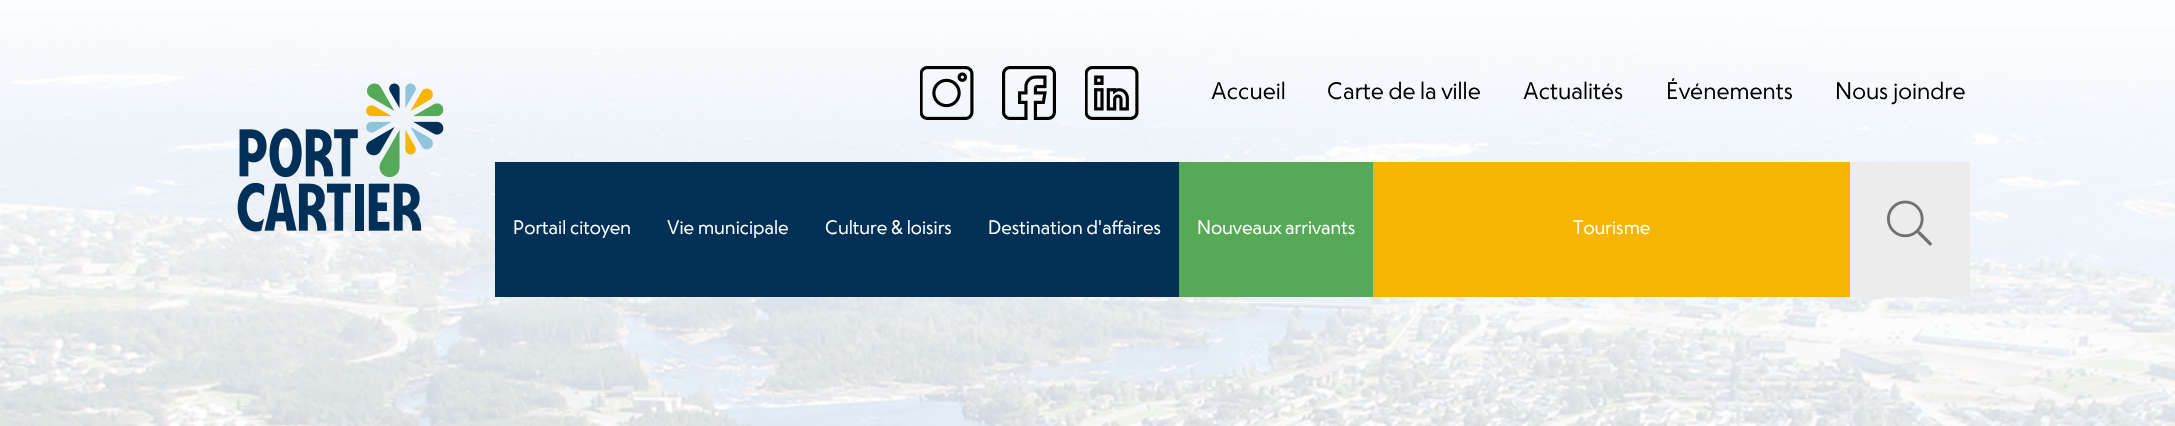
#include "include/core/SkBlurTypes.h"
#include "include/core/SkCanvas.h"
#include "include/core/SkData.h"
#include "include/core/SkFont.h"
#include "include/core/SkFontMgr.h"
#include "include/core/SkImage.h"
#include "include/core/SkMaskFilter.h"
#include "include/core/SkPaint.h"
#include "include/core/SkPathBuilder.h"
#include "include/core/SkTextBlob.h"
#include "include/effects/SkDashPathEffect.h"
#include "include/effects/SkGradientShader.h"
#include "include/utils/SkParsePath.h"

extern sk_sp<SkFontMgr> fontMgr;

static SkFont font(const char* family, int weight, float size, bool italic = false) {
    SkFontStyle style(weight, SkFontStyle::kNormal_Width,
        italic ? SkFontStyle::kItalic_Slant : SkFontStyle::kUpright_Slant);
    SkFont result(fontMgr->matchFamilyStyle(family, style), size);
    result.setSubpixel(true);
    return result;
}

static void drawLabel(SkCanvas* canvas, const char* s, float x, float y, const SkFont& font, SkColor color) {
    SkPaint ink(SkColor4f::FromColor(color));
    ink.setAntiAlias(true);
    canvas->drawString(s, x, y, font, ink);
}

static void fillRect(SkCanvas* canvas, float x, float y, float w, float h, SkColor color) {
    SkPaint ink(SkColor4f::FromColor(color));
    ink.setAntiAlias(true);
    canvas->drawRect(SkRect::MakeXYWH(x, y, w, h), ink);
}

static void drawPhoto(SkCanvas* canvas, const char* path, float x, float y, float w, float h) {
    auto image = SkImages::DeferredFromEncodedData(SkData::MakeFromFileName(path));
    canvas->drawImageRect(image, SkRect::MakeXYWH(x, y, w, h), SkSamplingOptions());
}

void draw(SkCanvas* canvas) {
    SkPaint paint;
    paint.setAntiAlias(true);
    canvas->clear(0xFFFFFFFF);
    drawPhoto(canvas, "assets/img1.png", 0, 0, 2175, 426);
    drawPhoto(canvas, "assets/img2.png", 237, 83, 207, 149);
    drawPhoto(canvas, "assets/img3.png", 920, 66, 54, 54);
    drawPhoto(canvas, "assets/img4.png", 1002, 66, 54, 54);
    drawPhoto(canvas, "assets/img5.png", 1085, 66, 54, 54);
    SkFont font1 = font("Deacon", 400, 24);
    drawLabel(canvas, "Accueil", 1211, 99, font1, 0xFF000000);
    drawLabel(canvas, "Carte de la ville", 1327, 99, font1, 0xFF000000);
    drawLabel(canvas, "Actualités", 1523, 99, font1, 0xFF000000);
    drawLabel(canvas, "Événements", 1666, 99, font1, 0xFF000000);
    drawLabel(canvas, "Nous joindre", 1835, 99, font1, 0xFF000000);
    fillRect(canvas, 495, 162, 684, 135, 0xFF003056);
    SkFont font2 = font("Deacon", 400, 19.5f);
    drawLabel(canvas, "Portail citoyen", 513, 234, font2, 0xFFFFFFFF);
    drawLabel(canvas, "Vie municipale", 667, 234, font2, 0xFFFFFFFF);
    drawLabel(canvas, "Culture & loisirs", 825, 234, font2, 0xFFFFFFFF);
    drawLabel(canvas, "Destination d'affaires", 988, 234, font2, 0xFFFFFFFF);
    fillRect(canvas, 1179, 162, 194, 135, 0xFF56A956);
    drawLabel(canvas, "Nouveaux arrivants", 1197, 234, font2, 0xFFFFFFFF);
    fillRect(canvas, 1373, 162, 477, 135, 0xFFF5B500);
    drawLabel(canvas, "Tourisme", 1573, 234, font2, 0xFFFFFFFF);
    fillRect(canvas, 1850, 162, 120, 135, 0xFFECECEC);
    drawPhoto(canvas, "assets/img6.png", 1887, 200, 45, 46);
}
